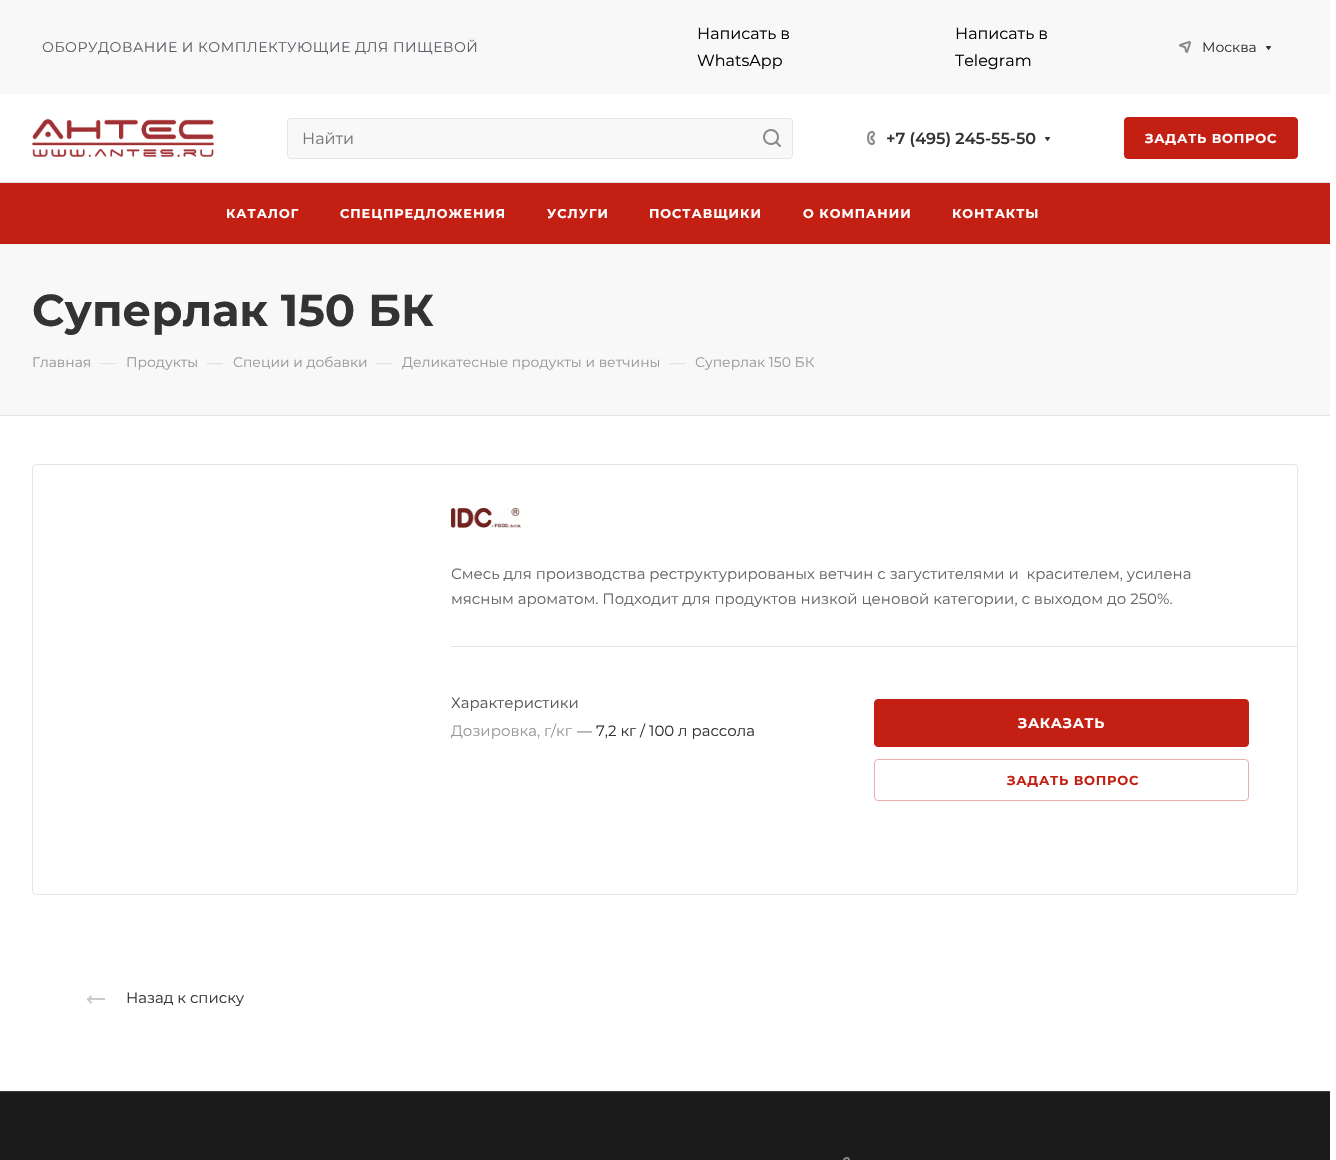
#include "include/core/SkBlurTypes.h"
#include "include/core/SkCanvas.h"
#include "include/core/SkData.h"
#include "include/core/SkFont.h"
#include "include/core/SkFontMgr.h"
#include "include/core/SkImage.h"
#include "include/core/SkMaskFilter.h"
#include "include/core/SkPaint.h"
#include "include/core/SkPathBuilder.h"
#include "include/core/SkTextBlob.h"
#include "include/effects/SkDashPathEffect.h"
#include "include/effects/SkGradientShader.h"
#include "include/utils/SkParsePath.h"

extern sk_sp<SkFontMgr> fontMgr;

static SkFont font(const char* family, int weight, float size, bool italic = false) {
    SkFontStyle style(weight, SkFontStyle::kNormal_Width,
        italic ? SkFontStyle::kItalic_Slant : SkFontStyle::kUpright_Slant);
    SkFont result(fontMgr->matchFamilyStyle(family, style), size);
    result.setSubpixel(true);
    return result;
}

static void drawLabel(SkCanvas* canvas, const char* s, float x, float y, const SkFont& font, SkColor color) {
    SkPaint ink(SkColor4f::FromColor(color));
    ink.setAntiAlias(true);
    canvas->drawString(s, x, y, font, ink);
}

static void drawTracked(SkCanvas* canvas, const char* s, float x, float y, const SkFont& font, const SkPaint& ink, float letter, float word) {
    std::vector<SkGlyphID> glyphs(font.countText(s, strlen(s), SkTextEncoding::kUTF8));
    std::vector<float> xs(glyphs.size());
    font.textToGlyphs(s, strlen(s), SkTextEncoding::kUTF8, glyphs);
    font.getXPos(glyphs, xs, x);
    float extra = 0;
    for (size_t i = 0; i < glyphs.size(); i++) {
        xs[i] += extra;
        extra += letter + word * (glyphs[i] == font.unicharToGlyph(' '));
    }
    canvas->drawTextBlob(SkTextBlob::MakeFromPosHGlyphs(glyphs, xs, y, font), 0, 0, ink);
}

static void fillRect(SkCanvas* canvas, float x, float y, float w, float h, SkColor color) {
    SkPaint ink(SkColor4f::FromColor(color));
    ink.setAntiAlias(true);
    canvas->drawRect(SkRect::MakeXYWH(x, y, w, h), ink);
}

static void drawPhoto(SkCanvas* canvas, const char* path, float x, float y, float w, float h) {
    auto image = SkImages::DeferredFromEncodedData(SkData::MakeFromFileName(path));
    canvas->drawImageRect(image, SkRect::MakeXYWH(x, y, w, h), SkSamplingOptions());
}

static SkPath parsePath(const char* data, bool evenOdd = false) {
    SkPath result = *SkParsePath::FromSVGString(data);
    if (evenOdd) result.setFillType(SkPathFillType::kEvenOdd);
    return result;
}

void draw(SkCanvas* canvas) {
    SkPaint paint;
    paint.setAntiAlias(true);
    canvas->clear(0xFFFFFFFF);
    fillRect(canvas, 0, 0, 1330, 94, 0xFFF8F8F8);
    SkFont font1 = font("Montserrat", 400, 14);
    paint.setColor(0xFF5C5F66);
    drawTracked(canvas, "ОБОРУДОВАНИЕ И КОМПЛЕКТУЮЩИЕ ДЛЯ ПИЩЕВОЙ", 42, 52, font1, paint, 0.5f, 0);
    SkFont font2 = font("Montserrat", 400, 16);
    drawLabel(canvas, "Написать в", 697, 39, font2, 0xFF000000);
    drawLabel(canvas, "WhatsApp", 697, 66, font2, 0xFF000000);
    drawLabel(canvas, "Написать в", 955, 39, font2, 0xFF000000);
    drawLabel(canvas, "Telegram", 955, 66, font2, 0xFF000000);
    drawPhoto(canvas, "assets/img1.png", 1179, 41, 12, 12);
    SkFont font3 = font("Montserrat", 400, 13.9f);
    drawLabel(canvas, "Москва", 1202, 52, font3, 0xFF333333);
    drawPhoto(canvas, "assets/img2.png", 1266, 46, 5, 4);
    fillRect(canvas, 0, 182, 1330, 1, 0xFFE5E5E5);
    drawPhoto(canvas, "assets/img3.png", 32, 119, 182, 38);
    paint.setColor(0xFFF8F8F8);
    canvas->drawRoundRect(SkRect::MakeXYWH(287.5f, 118.5f, 505, 40), 3.5f, 3.5f, paint);
    paint.setStroke(true);
    paint.setStrokeWidth(1);
    paint.setColor(0xFFE5E5E5);
    canvas->drawRoundRect(SkRect::MakeXYWH(287.5f, 118.5f, 505, 40), 3.5f, 3.5f, paint);
    drawLabel(canvas, "Найти", 302, 144, font2, 0xFF757575);
    drawPhoto(canvas, "assets/img4.png", 763, 129, 18, 18);
    drawPhoto(canvas, "assets/img5.png", 867, 131, 8, 14);
    SkFont font4 = font("Montserrat", 600, 16);
    drawLabel(canvas, "+7 (495) 245-55-50", 886, 144, font4, 0xFF333333);
    drawPhoto(canvas, "assets/img6.png", 1045, 137, 5, 4);
    paint.setStroke(false);
    paint.setColor(0xFFC32013);
    canvas->drawRoundRect(SkRect::MakeXYWH(1124.5f, 117.5f, 173, 41), 3.5f, 3.5f, paint);
    paint.setStroke(true);
    canvas->drawRoundRect(SkRect::MakeXYWH(1124.5f, 117.5f, 173, 41), 3.5f, 3.5f, paint);
    SkFont font5 = font("Montserrat", 700, 13);
    paint.setStroke(false);
    paint.setColor(0xFFFFFFFF);
    drawTracked(canvas, "ЗАДАТЬ ВОПРОС", 1145, 143, font5, paint, 0.75f, 0);
    fillRect(canvas, 0, 183, 1330, 60, 0xFFC32013);
    fillRect(canvas, 0, 243, 1330, 1, 0xFFB51E12);
    SkFont font6 = font("Montserrat", 700, 12.75f);
    drawTracked(canvas, "КАТАЛОГ", 226, 218, font6, paint, 1, 0);
    drawTracked(canvas, "СПЕЦПРЕДЛОЖЕНИЯ", 340, 218, font6, paint, 1, 0);
    drawTracked(canvas, "УСЛУГИ", 547, 218, font6, paint, 1, 0);
    drawTracked(canvas, "ПОСТАВЩИКИ", 649, 218, font6, paint, 1, 0);
    drawTracked(canvas, "О КОМПАНИИ", 803, 218, font6, paint, 1, 0);
    drawTracked(canvas, "КОНТАКТЫ", 952, 218, font6, paint, 1, 0);
    fillRect(canvas, 0, 244, 1330, 171, 0xFFF8F8F8);
    fillRect(canvas, 0, 415, 1330, 1, 0xFFE5E5E5);
    SkFont font7 = font("Montserrat", 700, 44.75f);
    drawLabel(canvas, "Суперлак 150 БК", 32, 326, font7, 0xFF333333);
    drawLabel(canvas, "Главная", 32, 367, font3, 0xFF999999);
    drawLabel(canvas, "—", 100, 368, font2, 0xFFDDDDDD);
    drawLabel(canvas, "Продукты", 126, 367, font3, 0xFF999999);
    drawLabel(canvas, "—", 207, 368, font2, 0xFFDDDDDD);
    drawLabel(canvas, "Специи и добавки", 233, 367, font3, 0xFF999999);
    drawLabel(canvas, "—", 376, 368, font2, 0xFFDDDDDD);
    drawLabel(canvas, "Деликатесные продукты и ветчины", 402, 367, font3, 0xFF999999);
    drawLabel(canvas, "—", 669, 368, font2, 0xFFDDDDDD);
    drawLabel(canvas, "Суперлак 150 БК", 695, 367, font3, 0xFF999999);
    paint.setStroke(true);
    paint.setColor(0xFFE5E5E5);
    canvas->drawRoundRect(SkRect::MakeXYWH(32.5f, 464.5f, 1265, 430), 3.5f, 3.5f, paint);
    fillRect(canvas, 451, 646, 846, 1, 0xFFE5E5E5);
    drawPhoto(canvas, "assets/img7.png", 451, 508, 70, 20);
    SkFont font8 = font("Montserrat", 400, 14.95f);
    drawLabel(canvas, "Смесь для производства реструктурированых ветчин с загустителями и  красителем, усилена", 451, 579, font8, 0xFF666666);
    drawLabel(canvas, "мясным ароматом. Подходит для продуктов низкой ценовой категории, с выходом до 250%.", 451, 604, font8, 0xFF666666);
    drawLabel(canvas, "Характеристики", 451, 708, font8, 0xFF555555);
    drawLabel(canvas, "Дозировка, г/кг", 451, 736, font8, 0xFF999999);
    drawLabel(canvas, "—", 577, 736, font8, 0xFF666666);
    drawLabel(canvas, "7,2 кг / 100 л рассола", 596, 736, font8, 0xFF333333);
    paint.setStroke(false);
    paint.setColor(0xFFC32013);
    canvas->drawRoundRect(SkRect::MakeXYWH(874.5f, 699.5f, 374, 47), 3.5f, 3.5f, paint);
    paint.setStroke(true);
    canvas->drawRoundRect(SkRect::MakeXYWH(874.5f, 699.5f, 374, 47), 3.5f, 3.5f, paint);
    SkFont font9 = font("Montserrat", 700, 14);
    paint.setStroke(false);
    paint.setColor(0xFFFFFFFF);
    drawTracked(canvas, "ЗАКАЗАТЬ", 1018, 728, font9, paint, 0.75f, 0);
    paint.setStroke(true);
    paint.setColor(0xFFEAB1AC);
    canvas->drawRoundRect(SkRect::MakeXYWH(874.5f, 759.5f, 374, 41), 3.5f, 3.5f, paint);
    paint.setStroke(false);
    paint.setColor(0xFFC32013);
    drawTracked(canvas, "ЗАДАТЬ ВОПРОС", 1007, 785, font5, paint, 0.75f, 0);
    paint.setStroke(true);
    paint.setStrokeWidth(2);
    paint.setStrokeCap(SkPaint::kRound_Cap);
    paint.setStrokeJoin(SkPaint::kRound_Join);
    paint.setColor(0xFFCACACA);
    canvas->drawPath(parsePath("M91 1002.5L88 999.5L91 996.5"), paint);
    fillRect(canvas, 87, 998, 18, 2, 0xFFCACACA);
    drawLabel(canvas, "Назад к списку", 126, 1003, font8, 0xFF333333);
    fillRect(canvas, 0, 1092, 1330, 68, 0xFF1B1B1B);
    fillRect(canvas, 0, 1091, 1330, 1, 0xFF3A3A3A);
    drawPhoto(canvas, "assets/img8.png", 842, 1157, 8, 3);
}
